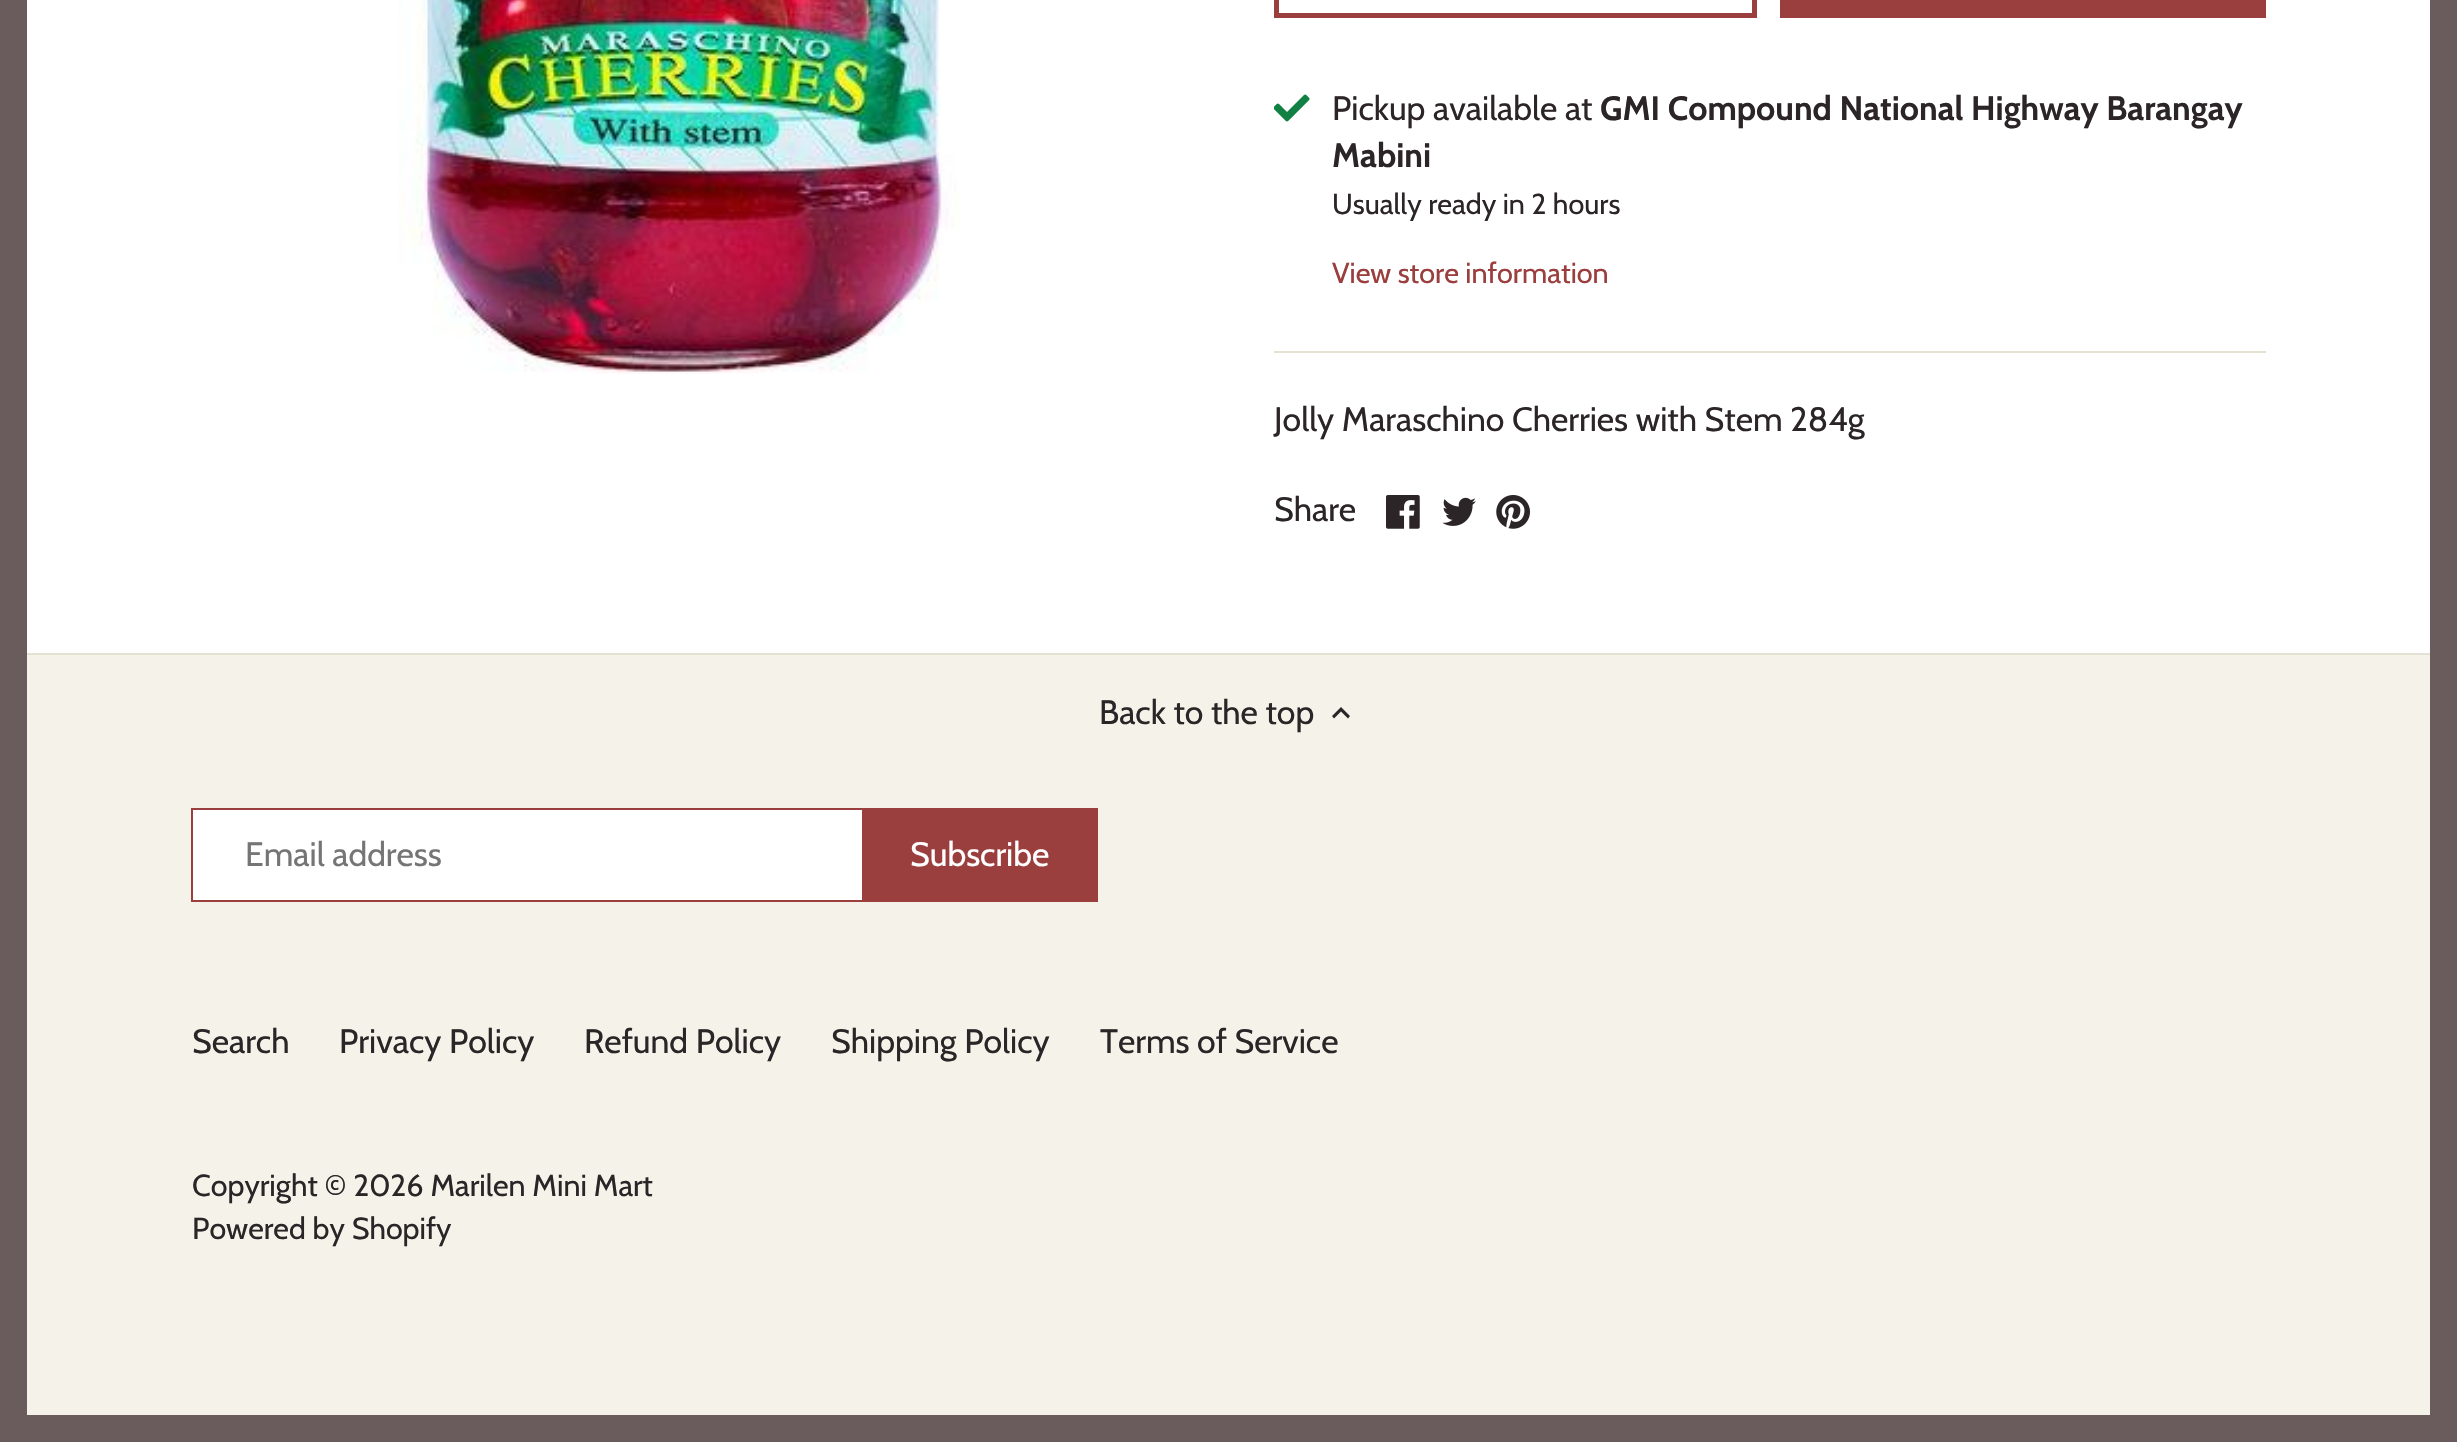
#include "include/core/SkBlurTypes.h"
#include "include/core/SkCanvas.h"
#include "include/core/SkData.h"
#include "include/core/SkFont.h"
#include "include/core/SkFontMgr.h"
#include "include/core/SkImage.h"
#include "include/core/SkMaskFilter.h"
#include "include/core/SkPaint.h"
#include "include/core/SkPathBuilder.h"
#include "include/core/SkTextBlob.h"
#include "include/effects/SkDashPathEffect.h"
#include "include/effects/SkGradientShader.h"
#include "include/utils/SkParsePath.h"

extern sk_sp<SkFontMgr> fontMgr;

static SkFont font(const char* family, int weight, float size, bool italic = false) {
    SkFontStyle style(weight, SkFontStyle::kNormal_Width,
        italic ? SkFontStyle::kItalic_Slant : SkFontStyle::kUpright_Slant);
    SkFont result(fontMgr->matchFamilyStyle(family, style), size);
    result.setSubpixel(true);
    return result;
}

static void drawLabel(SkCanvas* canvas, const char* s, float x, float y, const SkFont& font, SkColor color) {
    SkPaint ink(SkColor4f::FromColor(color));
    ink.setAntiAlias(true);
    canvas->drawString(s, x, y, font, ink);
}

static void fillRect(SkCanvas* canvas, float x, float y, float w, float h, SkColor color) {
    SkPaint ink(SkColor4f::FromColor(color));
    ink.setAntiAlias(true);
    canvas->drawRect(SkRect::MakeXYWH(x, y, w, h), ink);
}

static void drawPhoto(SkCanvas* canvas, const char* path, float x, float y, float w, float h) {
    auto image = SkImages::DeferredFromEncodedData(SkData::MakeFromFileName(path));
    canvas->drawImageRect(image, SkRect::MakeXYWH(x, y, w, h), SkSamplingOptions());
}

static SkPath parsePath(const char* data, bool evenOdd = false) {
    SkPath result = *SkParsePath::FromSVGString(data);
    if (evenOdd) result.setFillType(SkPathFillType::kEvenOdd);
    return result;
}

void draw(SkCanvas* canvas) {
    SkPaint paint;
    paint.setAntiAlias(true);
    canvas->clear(0xFFF4F2E9);
    paint.setStroke(true);
    paint.setStrokeWidth(27);
    paint.setColor(0xFF6A5B5C);
    canvas->drawRect(SkRect::MakeXYWH(13.5f, -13.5f, 2430, 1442), paint);
    fillRect(canvas, 27, 0, 2403, 653, 0xFFFFFFFF);
    drawPhoto(canvas, "assets/img1.png", 398, 0, 562, 374);
    fillRect(canvas, 1274, 351, 992, 2, 0xFFE5E2D4);
    paint.setStrokeWidth(5);
    paint.setColor(0xFF9B3E3E);
    canvas->drawRect(SkRect::MakeXYWH(1276.5f, -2.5f, 478, 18), paint);
    fillRect(canvas, 1780, 0, 486, 18, 0xFF9B3E3E);
    drawPhoto(canvas, "assets/img2.png", 1274, 94, 36, 28);
    SkFont font1 = font("Cabin", 400, 33.75f);
    drawLabel(canvas, "Pickup available at", 1332, 120, font1, 0xFF2C2528);
    SkFont font2 = font("Cabin", 700, 33.75f);
    drawLabel(canvas, "GMI Compound National Highway Barangay", 1600, 120, font2, 0xFF2C2528);
    drawLabel(canvas, "Mabini", 1332, 167, font2, 0xFF2C2528);
    SkFont font3 = font("Cabin", 400, 28.75f);
    drawLabel(canvas, "Usually ready in 2 hours", 1332, 214, font3, 0xFF2C2528);
    drawLabel(canvas, "View store information", 1332, 283, font3, 0xFF9B3E3E);
    drawLabel(canvas, "Jolly Maraschino Cherries with Stem 284g", 1274, 431, font1, 0xFF2C2528);
    drawLabel(canvas, "Share", 1274, 521, font1, 0xFF2C2528);
    drawPhoto(canvas, "assets/img3.png", 1386, 495, 34, 34);
    drawPhoto(canvas, "assets/img4.png", 1442, 497, 34, 29);
    drawPhoto(canvas, "assets/img5.png", 1496, 495, 34, 34);
    fillRect(canvas, 27, 653, 2403, 2, 0xFFE5E2D4);
    drawLabel(canvas, "Back to the top", 1099, 724, font1, 0xFF2C2528);
    paint.setStroke(false);
    paint.setColor(0xFF2C2528);
    canvas->drawPath(parsePath("M1334 718.5L1341 711.5L1348 718.5L1350 716L1341 707L1332 716Z"), paint);
    fillRect(canvas, 193, 810, 669, 90, 0xFFFFFFFF);
    paint.setStroke(true);
    paint.setStrokeWidth(2);
    paint.setColor(0xFF9B3E3E);
    canvas->drawRect(SkRect::MakeXYWH(192, 809, 903, 92), paint);
    drawLabel(canvas, "Email address", 245, 866, font1, 0xFF757575);
    fillRect(canvas, 862, 808, 236, 94, 0xFF9B3E3E);
    drawLabel(canvas, "Subscribe", 910, 866, font1, 0xFFFFFFFF);
    drawLabel(canvas, "Search", 192, 1053, font1, 0xFF2C2528);
    drawLabel(canvas, "Privacy Policy", 339, 1053, font1, 0xFF2C2528);
    drawLabel(canvas, "Refund Policy", 584, 1053, font1, 0xFF2C2528);
    drawLabel(canvas, "Shipping Policy", 831, 1053, font1, 0xFF2C2528);
    drawLabel(canvas, "Terms of Service", 1100, 1053, font1, 0xFF2C2528);
    SkFont font4 = font("Cabin", 400, 30.4f);
    drawLabel(canvas, "Copyright © 2026 Marilen Mini Mart", 192, 1196, font4, 0xFF2C2528);
    drawLabel(canvas, "Powered by Shopify", 192, 1239, font4, 0xFF2C2528);
}
